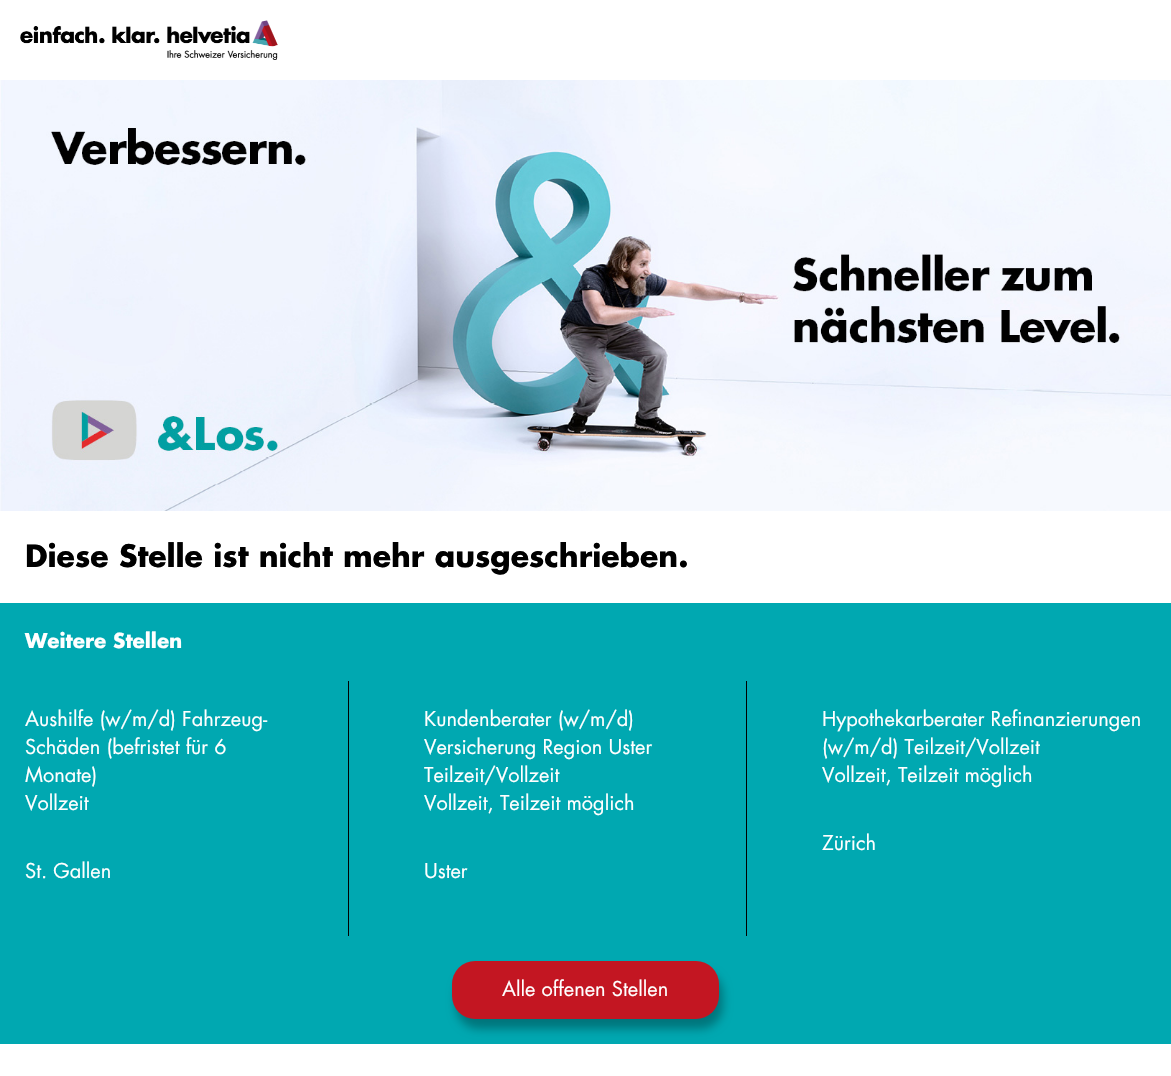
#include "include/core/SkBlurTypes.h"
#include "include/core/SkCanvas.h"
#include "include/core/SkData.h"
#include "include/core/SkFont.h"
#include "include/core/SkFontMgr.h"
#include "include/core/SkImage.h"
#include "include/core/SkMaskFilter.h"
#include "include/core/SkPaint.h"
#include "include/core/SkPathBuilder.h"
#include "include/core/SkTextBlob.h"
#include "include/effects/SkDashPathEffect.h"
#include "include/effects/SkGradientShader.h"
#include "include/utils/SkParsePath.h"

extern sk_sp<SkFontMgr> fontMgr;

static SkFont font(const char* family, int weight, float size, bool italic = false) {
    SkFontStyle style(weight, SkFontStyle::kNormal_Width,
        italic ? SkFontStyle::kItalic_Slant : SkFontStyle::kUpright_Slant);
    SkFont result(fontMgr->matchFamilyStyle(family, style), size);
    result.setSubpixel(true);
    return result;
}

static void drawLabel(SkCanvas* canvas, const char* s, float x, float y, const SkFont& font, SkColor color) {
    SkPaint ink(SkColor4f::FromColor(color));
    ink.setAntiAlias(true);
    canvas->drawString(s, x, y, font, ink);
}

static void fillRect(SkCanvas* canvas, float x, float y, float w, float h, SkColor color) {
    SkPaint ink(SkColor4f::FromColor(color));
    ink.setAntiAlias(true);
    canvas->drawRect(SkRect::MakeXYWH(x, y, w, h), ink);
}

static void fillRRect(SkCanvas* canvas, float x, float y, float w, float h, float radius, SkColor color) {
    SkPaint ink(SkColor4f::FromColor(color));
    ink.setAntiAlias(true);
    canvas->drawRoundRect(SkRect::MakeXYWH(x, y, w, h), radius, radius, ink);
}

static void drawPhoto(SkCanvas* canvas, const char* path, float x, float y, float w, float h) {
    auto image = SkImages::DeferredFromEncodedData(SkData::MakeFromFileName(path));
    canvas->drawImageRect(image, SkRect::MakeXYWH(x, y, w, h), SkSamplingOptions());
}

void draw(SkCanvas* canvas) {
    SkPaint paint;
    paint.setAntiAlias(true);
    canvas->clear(0xFFFFFFFF);
    drawPhoto(canvas, "assets/img1.png", 20, 20, 258, 40);
    drawPhoto(canvas, "assets/img2.png", 0, 80, 1171, 431);
    SkFont font1 = font("Futura", 700, 30);
    drawLabel(canvas, "Diese Stelle ist nicht mehr ausgeschrieben.", 25, 567, font1, 0xFF000000);
    fillRect(canvas, 0, 603, 1171, 441, 0xFF00A8B1);
    SkFont font2 = font("Futura", 700, 20);
    drawLabel(canvas, "Weitere Stellen", 25, 648, font2, 0xFFFFFFFF);
    fillRect(canvas, 348, 681, 1, 255, 0xFF000000);
    SkFont font3 = font("Futura", 400, 20);
    drawLabel(canvas, "Aushilfe (w/m/d) Fahrzeug-", 25, 726, font3, 0xFFFFFFFF);
    drawLabel(canvas, "Schäden (befristet für 6", 25, 754, font3, 0xFFFFFFFF);
    drawLabel(canvas, "Monate)", 25, 782, font3, 0xFFFFFFFF);
    drawLabel(canvas, "Vollzeit", 25, 810, font3, 0xFFFFFFFF);
    drawLabel(canvas, "St. Gallen", 25, 878, font3, 0xFFFFFFFF);
    fillRect(canvas, 746, 681, 1, 255, 0xFF000000);
    drawLabel(canvas, "Kundenberater (w/m/d)", 424, 726, font3, 0xFFFFFFFF);
    drawLabel(canvas, "Versicherung Region Uster", 424, 754, font3, 0xFFFFFFFF);
    drawLabel(canvas, "Teilzeit/Vollzeit", 424, 782, font3, 0xFFFFFFFF);
    drawLabel(canvas, "Vollzeit, Teilzeit möglich", 424, 810, font3, 0xFFFFFFFF);
    drawLabel(canvas, "Uster", 424, 878, font3, 0xFFFFFFFF);
    drawLabel(canvas, "Hypothekarberater Refinanzierungen", 822, 726, font3, 0xFFFFFFFF);
    drawLabel(canvas, "(w/m/d) Teilzeit/Vollzeit", 822, 754, font3, 0xFFFFFFFF);
    drawLabel(canvas, "Vollzeit, Teilzeit möglich", 822, 782, font3, 0xFFFFFFFF);
    drawLabel(canvas, "Zürich", 822, 850, font3, 0xFFFFFFFF);
    paint.setColor(0x4D000000);
    paint.setMaskFilter(SkMaskFilter::MakeBlur(kNormal_SkBlurStyle, 5));
    canvas->drawRoundRect(SkRect::MakeXYWH(456, 971, 267, 58), 23, 23, paint);
    paint.setMaskFilter(nullptr);
    fillRRect(canvas, 452, 961, 267, 58, 23, 0xFFC31622);
    drawLabel(canvas, "Alle offenen Stellen", 502, 996, font3, 0xFFFFFFFF);
}
